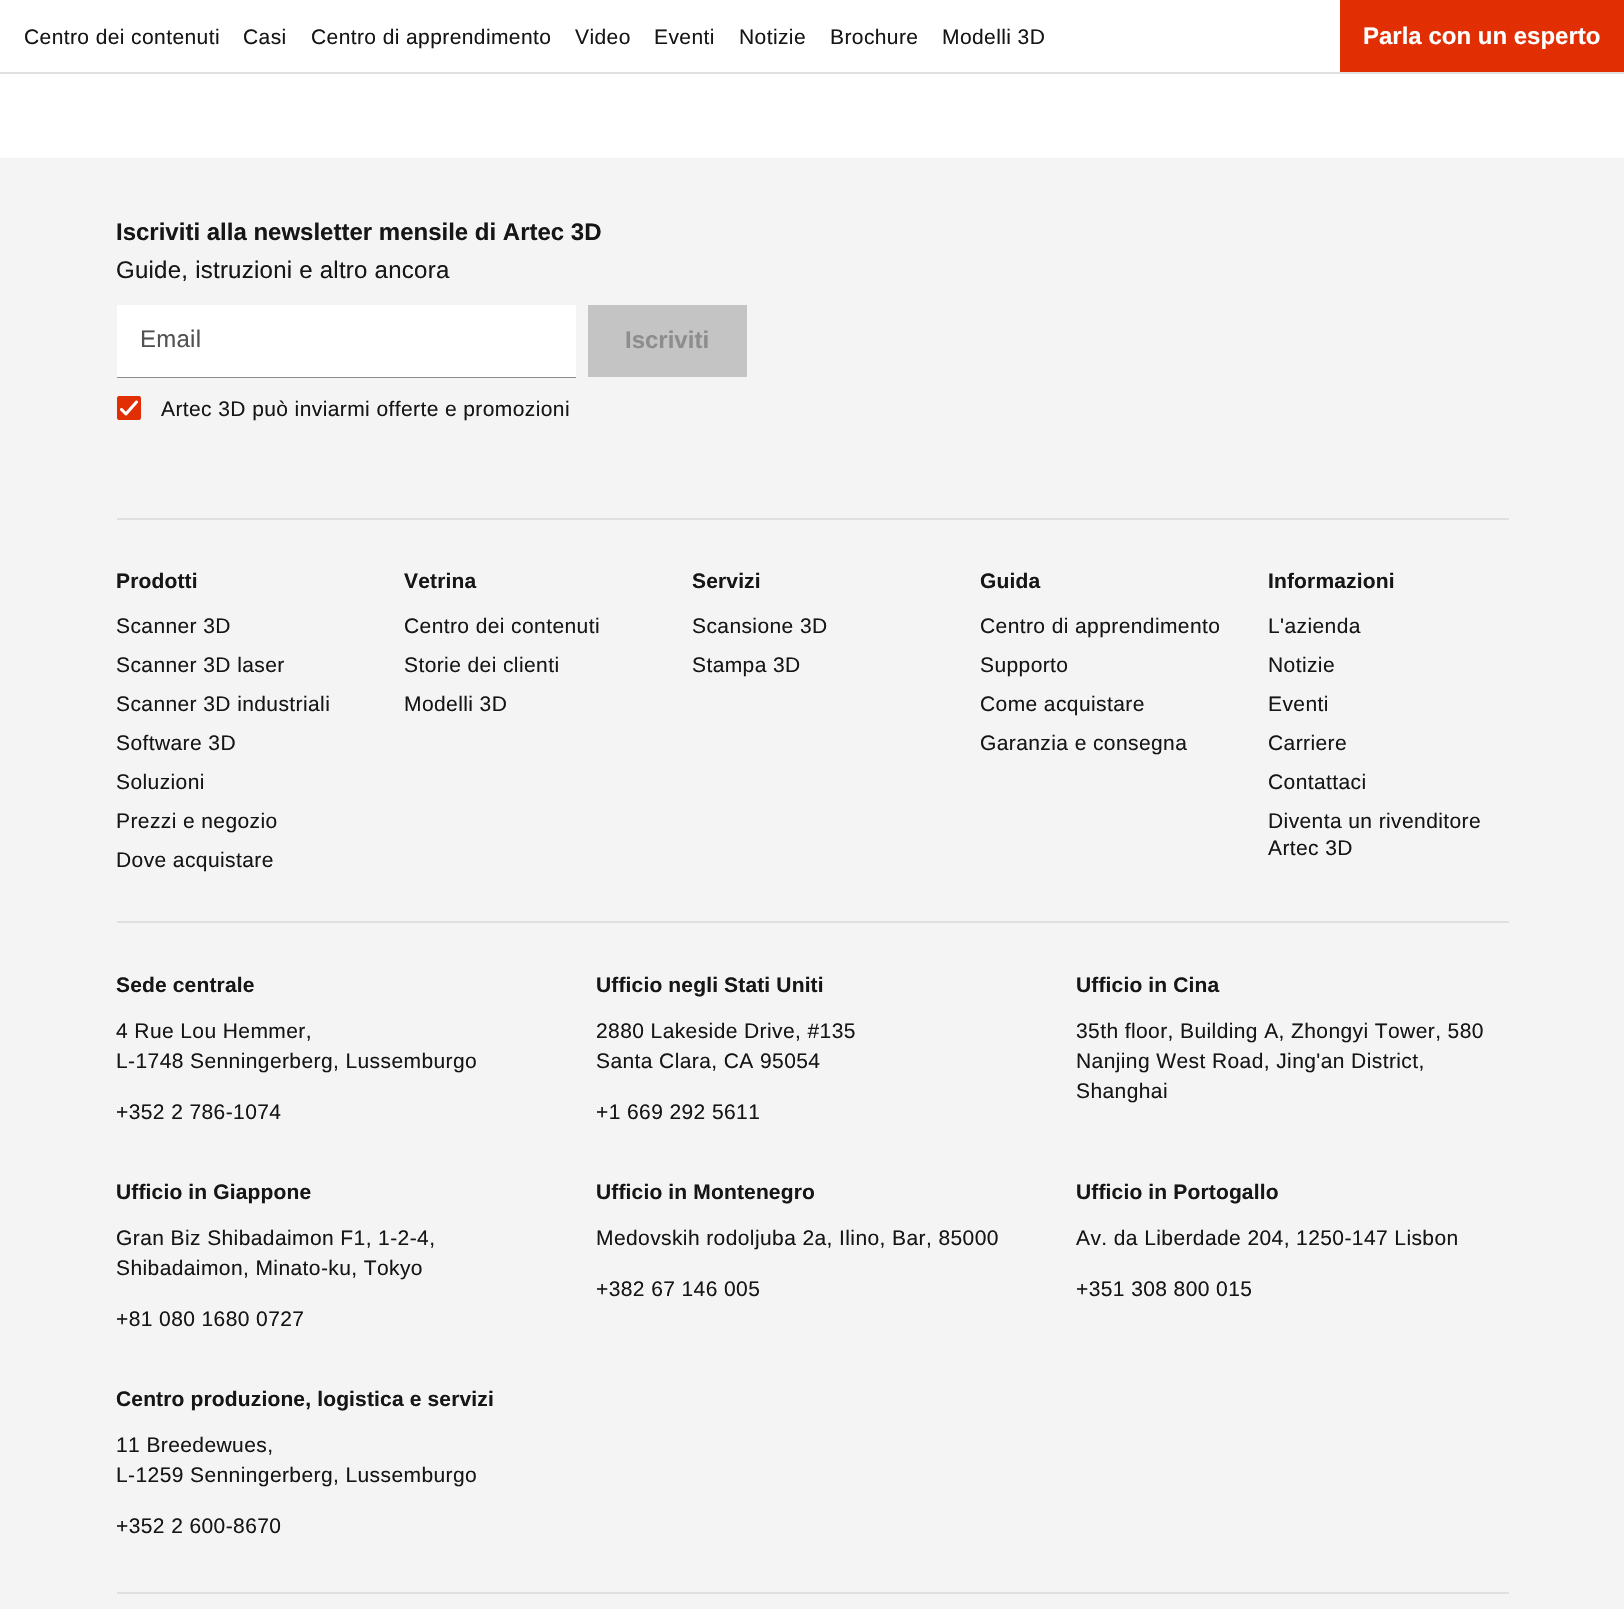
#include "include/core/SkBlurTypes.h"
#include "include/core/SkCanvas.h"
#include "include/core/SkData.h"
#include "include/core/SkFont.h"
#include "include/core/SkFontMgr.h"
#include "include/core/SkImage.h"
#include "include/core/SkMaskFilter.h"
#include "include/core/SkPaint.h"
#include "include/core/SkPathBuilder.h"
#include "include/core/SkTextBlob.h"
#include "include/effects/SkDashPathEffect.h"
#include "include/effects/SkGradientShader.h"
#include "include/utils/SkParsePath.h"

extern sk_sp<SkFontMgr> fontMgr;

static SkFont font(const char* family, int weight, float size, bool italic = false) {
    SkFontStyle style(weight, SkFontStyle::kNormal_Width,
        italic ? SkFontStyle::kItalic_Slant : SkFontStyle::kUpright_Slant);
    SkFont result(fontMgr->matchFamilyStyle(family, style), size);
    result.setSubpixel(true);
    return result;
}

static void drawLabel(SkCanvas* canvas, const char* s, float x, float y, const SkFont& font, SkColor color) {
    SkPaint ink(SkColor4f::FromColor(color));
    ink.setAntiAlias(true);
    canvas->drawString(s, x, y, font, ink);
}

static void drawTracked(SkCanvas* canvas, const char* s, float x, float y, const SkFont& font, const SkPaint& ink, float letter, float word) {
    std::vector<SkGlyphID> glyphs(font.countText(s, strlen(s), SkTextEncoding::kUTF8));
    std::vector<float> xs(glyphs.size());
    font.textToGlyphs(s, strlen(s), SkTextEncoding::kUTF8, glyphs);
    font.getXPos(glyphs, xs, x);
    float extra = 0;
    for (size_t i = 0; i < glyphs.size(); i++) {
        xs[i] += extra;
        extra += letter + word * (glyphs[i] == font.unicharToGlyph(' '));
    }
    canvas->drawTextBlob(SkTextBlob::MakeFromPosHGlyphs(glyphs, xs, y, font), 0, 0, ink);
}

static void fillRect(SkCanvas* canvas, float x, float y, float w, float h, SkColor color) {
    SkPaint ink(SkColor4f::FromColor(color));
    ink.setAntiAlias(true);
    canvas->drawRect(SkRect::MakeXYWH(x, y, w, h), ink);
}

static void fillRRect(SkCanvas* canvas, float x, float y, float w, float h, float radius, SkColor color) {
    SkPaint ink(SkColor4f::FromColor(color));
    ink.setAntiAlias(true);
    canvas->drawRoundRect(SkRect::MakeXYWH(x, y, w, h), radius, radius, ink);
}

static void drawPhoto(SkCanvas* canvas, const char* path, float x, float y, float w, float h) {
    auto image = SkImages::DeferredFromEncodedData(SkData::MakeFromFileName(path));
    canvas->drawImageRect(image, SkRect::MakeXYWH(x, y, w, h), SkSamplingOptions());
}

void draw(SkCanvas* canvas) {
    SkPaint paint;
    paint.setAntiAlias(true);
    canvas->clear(0xFFFFFFFF);
    fillRect(canvas, 0, 72, 1624, 2, 0xFFE0E0E0);
    SkFont font1 = font("Liberation Sans", 400, 21);
    paint.setColor(0xFF161616);
    drawTracked(canvas, "Centro dei contenuti", 24, 44, font1, paint, 0.4f, 0);
    drawTracked(canvas, "Casi", 243, 44, font1, paint, 0.4f, 0);
    drawTracked(canvas, "Centro di apprendimento", 311, 44, font1, paint, 0.4f, 0);
    drawTracked(canvas, "Video", 575, 44, font1, paint, 0.4f, 0);
    drawTracked(canvas, "Eventi", 654, 44, font1, paint, 0.4f, 0);
    drawTracked(canvas, "Notizie", 739, 44, font1, paint, 0.4f, 0);
    drawTracked(canvas, "Brochure", 830, 44, font1, paint, 0.4f, 0);
    drawTracked(canvas, "Modelli 3D", 942, 44, font1, paint, 0.4f, 0);
    fillRect(canvas, 1340, 0, 284, 72, 0xFFE22E03);
    SkFont font2 = font("Liberation Sans", 700, 24);
    drawLabel(canvas, "Parla con un esperto", 1363, 44, font2, 0xFFFFFFFF);
    fillRect(canvas, 0, 158, 1624, 1451, 0xFFF4F4F4);
    drawLabel(canvas, "Iscriviti alla newsletter mensile di Artec 3D", 116, 240, font2, 0xFF161616);
    SkFont font3 = font("Liberation Sans", 400, 24);
    drawTracked(canvas, "Guide, istruzioni e altro ancora", 116, 278, font3, paint, 0.25f, 0);
    fillRect(canvas, 117, 377, 459, 1, 0xFF8D8D8D);
    fillRect(canvas, 117, 305, 459, 72, 0xFFFFFFFF);
    paint.setColor(0xFF525252);
    drawTracked(canvas, "Email", 140, 347, font3, paint, 0.25f, 0);
    fillRect(canvas, 588, 305, 159, 72, 0xFFC4C4C4);
    drawLabel(canvas, "Iscriviti", 625, 348, font2, 0xFF8D8D8D);
    fillRRect(canvas, 117, 396, 24, 24, 3, 0xFFE22E03);
    drawPhoto(canvas, "assets/img1.png", 120, 400, 18, 16);
    paint.setStroke(true);
    paint.setStrokeWidth(2);
    paint.setColor(0xFFE22E03);
    canvas->drawRoundRect(SkRect::MakeXYWH(118, 397, 22, 22), 2, 2, paint);
    paint.setStroke(false);
    paint.setColor(0xFF161616);
    drawTracked(canvas, "Artec 3D può inviarmi offerte e promozioni", 161, 416, font1, paint, 0.4f, 0);
    fillRect(canvas, 117, 518, 1392, 2, 0xFFE0E0E0);
    SkFont font4 = font("Liberation Sans", 700, 21);
    drawTracked(canvas, "Prodotti", 116, 588, font4, paint, 0.15f, 0);
    drawTracked(canvas, "Scanner 3D", 116, 633, font1, paint, 0.4f, 0);
    drawTracked(canvas, "Scanner 3D laser", 116, 672, font1, paint, 0.4f, 0);
    drawTracked(canvas, "Scanner 3D industriali", 116, 711, font1, paint, 0.4f, 0);
    drawTracked(canvas, "Software 3D", 116, 750, font1, paint, 0.4f, 0);
    drawTracked(canvas, "Soluzioni", 116, 789, font1, paint, 0.4f, 0);
    drawTracked(canvas, "Prezzi e negozio", 116, 828, font1, paint, 0.4f, 0);
    drawTracked(canvas, "Dove acquistare", 116, 867, font1, paint, 0.4f, 0);
    drawTracked(canvas, "Vetrina", 404, 588, font4, paint, 0.15f, 0);
    drawTracked(canvas, "Centro dei contenuti", 404, 633, font1, paint, 0.4f, 0);
    drawTracked(canvas, "Storie dei clienti", 404, 672, font1, paint, 0.4f, 0);
    drawTracked(canvas, "Modelli 3D", 404, 711, font1, paint, 0.4f, 0);
    drawTracked(canvas, "Servizi", 692, 588, font4, paint, 0.15f, 0);
    drawTracked(canvas, "Scansione 3D", 692, 633, font1, paint, 0.4f, 0);
    drawTracked(canvas, "Stampa 3D", 692, 672, font1, paint, 0.4f, 0);
    drawTracked(canvas, "Guida", 980, 588, font4, paint, 0.15f, 0);
    drawTracked(canvas, "Centro di apprendimento", 980, 633, font1, paint, 0.4f, 0);
    drawTracked(canvas, "Supporto", 980, 672, font1, paint, 0.4f, 0);
    drawTracked(canvas, "Come acquistare", 980, 711, font1, paint, 0.4f, 0);
    drawTracked(canvas, "Garanzia e consegna", 980, 750, font1, paint, 0.4f, 0);
    drawTracked(canvas, "Informazioni", 1268, 588, font4, paint, 0.15f, 0);
    drawTracked(canvas, "L'azienda", 1268, 633, font1, paint, 0.4f, 0);
    drawTracked(canvas, "Notizie", 1268, 672, font1, paint, 0.4f, 0);
    drawTracked(canvas, "Eventi", 1268, 711, font1, paint, 0.4f, 0);
    drawTracked(canvas, "Carriere", 1268, 750, font1, paint, 0.4f, 0);
    drawTracked(canvas, "Contattaci", 1268, 789, font1, paint, 0.4f, 0);
    drawTracked(canvas, "Diventa un rivenditore", 1268, 828, font1, paint, 0.4f, 0);
    drawTracked(canvas, "Artec 3D", 1268, 855, font1, paint, 0.4f, 0);
    fillRect(canvas, 117, 921, 1392, 2, 0xFFE0E0E0);
    drawTracked(canvas, "Sede centrale", 116, 992, font4, paint, 0.15f, 0);
    drawTracked(canvas, "4 Rue Lou Hemmer,", 116, 1038, font1, paint, 0.4f, 0);
    drawTracked(canvas, "L-1748 Senningerberg, Lussemburgo", 116, 1068, font1, paint, 0.4f, 0);
    drawTracked(canvas, "+352 2 786-1074", 116, 1119, font1, paint, 0.4f, 0);
    drawTracked(canvas, "Ufficio negli Stati Uniti", 596, 992, font4, paint, 0.15f, 0);
    drawTracked(canvas, "2880 Lakeside Drive, #135", 596, 1038, font1, paint, 0.4f, 0);
    drawTracked(canvas, "Santa Clara, CA 95054", 596, 1068, font1, paint, 0.4f, 0);
    drawTracked(canvas, "+1 669 292 5611", 596, 1119, font1, paint, 0.4f, 0);
    drawTracked(canvas, "Ufficio in Cina", 1076, 992, font4, paint, 0.15f, 0);
    drawTracked(canvas, "35th floor, Building A, Zhongyi Tower, 580", 1076, 1038, font1, paint, 0.4f, 0);
    drawTracked(canvas, "Nanjing West Road, Jing'an District,", 1076, 1068, font1, paint, 0.4f, 0);
    drawTracked(canvas, "Shanghai", 1076, 1098, font1, paint, 0.4f, 0);
    drawTracked(canvas, "Ufficio in Giappone", 116, 1199, font4, paint, 0.15f, 0);
    drawTracked(canvas, "Gran Biz Shibadaimon F1, 1-2-4,", 116, 1245, font1, paint, 0.4f, 0);
    drawTracked(canvas, "Shibadaimon, Minato-ku, Tokyo", 116, 1275, font1, paint, 0.4f, 0);
    drawTracked(canvas, "+81 080 1680 0727", 116, 1326, font1, paint, 0.4f, 0);
    drawTracked(canvas, "Ufficio in Montenegro", 596, 1199, font4, paint, 0.15f, 0);
    drawTracked(canvas, "Medovskih rodoljuba 2a, Ilino, Bar, 85000", 596, 1245, font1, paint, 0.4f, 0);
    drawTracked(canvas, "+382 67 146 005", 596, 1296, font1, paint, 0.4f, 0);
    drawTracked(canvas, "Ufficio in Portogallo", 1076, 1199, font4, paint, 0.15f, 0);
    drawTracked(canvas, "Av. da Liberdade 204, 1250-147 Lisbon", 1076, 1245, font1, paint, 0.4f, 0);
    drawTracked(canvas, "+351 308 800 015", 1076, 1296, font1, paint, 0.4f, 0);
    drawTracked(canvas, "Centro produzione, logistica e servizi", 116, 1406, font4, paint, 0.15f, 0);
    drawTracked(canvas, "11 Breedewues,", 116, 1452, font1, paint, 0.4f, 0);
    drawTracked(canvas, "L-1259 Senningerberg, Lussemburgo", 116, 1482, font1, paint, 0.4f, 0);
    drawTracked(canvas, "+352 2 600-8670", 116, 1533, font1, paint, 0.4f, 0);
    fillRect(canvas, 117, 1592, 1392, 2, 0xFFE0E0E0);
}
